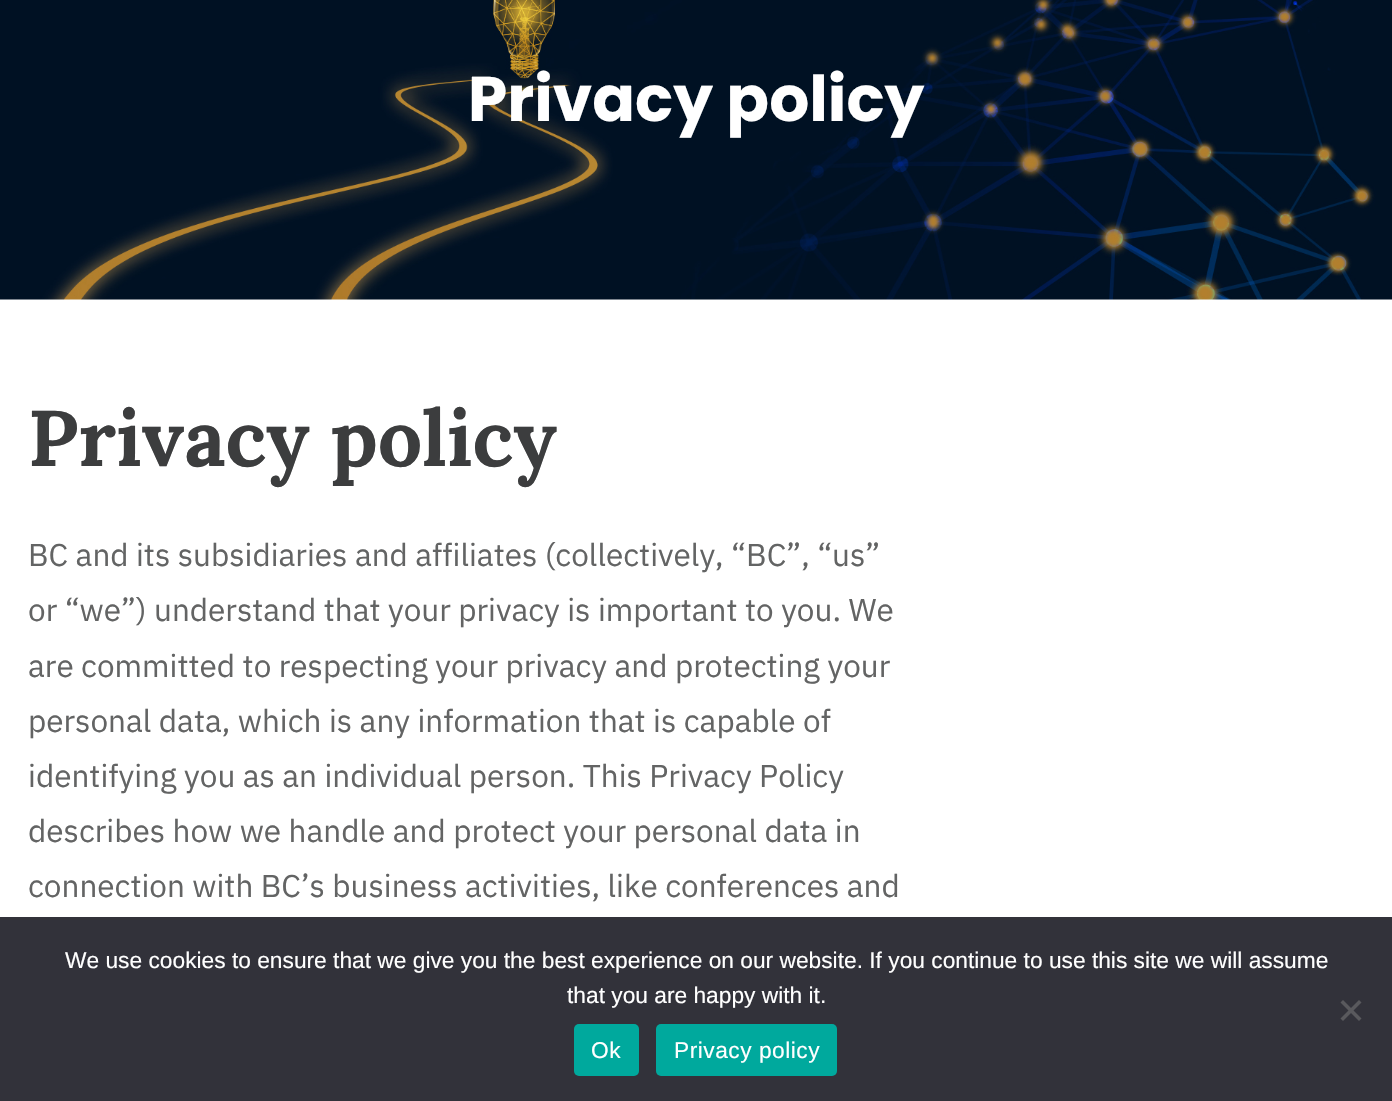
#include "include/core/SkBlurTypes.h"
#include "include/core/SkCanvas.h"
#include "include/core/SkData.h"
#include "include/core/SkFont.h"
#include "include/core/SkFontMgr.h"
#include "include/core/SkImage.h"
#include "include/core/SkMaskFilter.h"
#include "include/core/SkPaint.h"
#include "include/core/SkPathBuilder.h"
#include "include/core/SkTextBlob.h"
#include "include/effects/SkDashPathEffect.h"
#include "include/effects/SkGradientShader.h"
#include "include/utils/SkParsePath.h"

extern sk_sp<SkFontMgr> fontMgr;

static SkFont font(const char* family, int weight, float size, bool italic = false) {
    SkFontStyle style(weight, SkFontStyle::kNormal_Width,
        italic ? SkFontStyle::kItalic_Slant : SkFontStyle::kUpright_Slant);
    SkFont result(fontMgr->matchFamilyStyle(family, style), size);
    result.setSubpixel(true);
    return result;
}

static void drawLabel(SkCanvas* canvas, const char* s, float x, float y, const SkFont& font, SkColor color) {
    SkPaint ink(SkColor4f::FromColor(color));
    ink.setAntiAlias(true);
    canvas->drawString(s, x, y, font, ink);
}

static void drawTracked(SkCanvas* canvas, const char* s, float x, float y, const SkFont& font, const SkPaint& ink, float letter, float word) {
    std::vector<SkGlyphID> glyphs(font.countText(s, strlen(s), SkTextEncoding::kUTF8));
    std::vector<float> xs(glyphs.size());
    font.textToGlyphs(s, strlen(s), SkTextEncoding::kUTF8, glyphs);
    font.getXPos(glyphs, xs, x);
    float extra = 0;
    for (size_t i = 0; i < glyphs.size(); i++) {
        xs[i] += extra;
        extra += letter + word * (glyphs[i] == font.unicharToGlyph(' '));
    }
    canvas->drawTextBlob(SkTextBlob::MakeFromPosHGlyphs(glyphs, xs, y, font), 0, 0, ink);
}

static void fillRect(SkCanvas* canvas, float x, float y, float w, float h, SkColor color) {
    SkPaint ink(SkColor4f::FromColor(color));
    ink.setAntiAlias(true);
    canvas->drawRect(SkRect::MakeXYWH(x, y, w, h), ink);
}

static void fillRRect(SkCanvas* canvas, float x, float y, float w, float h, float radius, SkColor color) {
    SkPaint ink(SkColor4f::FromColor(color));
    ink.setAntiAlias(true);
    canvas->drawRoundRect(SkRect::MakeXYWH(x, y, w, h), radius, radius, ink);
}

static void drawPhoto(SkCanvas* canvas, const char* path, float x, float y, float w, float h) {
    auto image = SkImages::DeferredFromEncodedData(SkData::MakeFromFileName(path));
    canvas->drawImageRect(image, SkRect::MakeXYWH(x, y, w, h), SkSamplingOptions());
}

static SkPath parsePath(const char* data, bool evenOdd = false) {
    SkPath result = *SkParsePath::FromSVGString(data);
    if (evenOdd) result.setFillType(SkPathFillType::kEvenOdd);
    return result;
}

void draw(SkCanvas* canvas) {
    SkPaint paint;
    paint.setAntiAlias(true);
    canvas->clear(0xFFFFFFFF);
    drawPhoto(canvas, "assets/img1.png", 0, 0, 1392, 300);
    SkFont font1 = font("Poppins", 700, 63);
    drawLabel(canvas, "Privacy policy", 468, 121, font1, 0xFFFFFFFF);
    SkFont font2 = font("Lora", 700, 78.75f);
    drawLabel(canvas, "Privacy policy", 28, 466, font2, 0xFF3C3D3E);
    SkFont font3 = font("IBM Plex Sans", 400, 31.5f);
    drawLabel(canvas, "BC and its subsidiaries and affiliates (collectively, “BC”, “us”", 28, 566, font3, 0xFF636464);
    drawLabel(canvas, "or “we”) understand that your privacy is important to you. We", 28, 621, font3, 0xFF636464);
    drawLabel(canvas, "are committed to respecting your privacy and protecting your", 28, 677, font3, 0xFF636464);
    drawLabel(canvas, "personal data, which is any information that is capable of", 28, 732, font3, 0xFF636464);
    drawLabel(canvas, "identifying you as an individual person. This Privacy Policy", 28, 787, font3, 0xFF636464);
    drawLabel(canvas, "describes how we handle and protect your personal data in", 28, 842, font3, 0xFF636464);
    drawLabel(canvas, "connection with BC’s business activities, like conferences and", 28, 897, font3, 0xFF636464);
    fillRect(canvas, 0, 917, 1392, 184, 0xFF32323A);
    SkFont font4 = font("Liberation Sans", 400, 22.75f);
    drawLabel(canvas, "We use cookies to ensure that we give you the best experience on our website. If you continue to use this site we will assume", 65, 968, font4, 0xFFFFFFFF);
    drawLabel(canvas, "that you are happy with it.", 567, 1003, font4, 0xFFFFFFFF);
    paint.setColor(0xFF59595D);
    canvas->drawPath(parsePath("M1359 1000L1361.5 1002.5L1343 1021L1340.5 1018.5Z"), paint);
    canvas->drawPath(parsePath("M1340.5 1002.5L1343 1000L1361.5 1018.5L1359 1021Z"), paint);
    fillRRect(canvas, 574, 1024, 65, 52, 5, 0xFF00A99D);
    paint.setColor(0xFFFFFFFF);
    drawTracked(canvas, "Ok", 591, 1058, font4, paint, 0.5f, 0);
    fillRRect(canvas, 656, 1024, 181, 52, 5, 0xFF00A99D);
    drawTracked(canvas, "Privacy policy", 674, 1058, font4, paint, 0.5f, 0);
}
